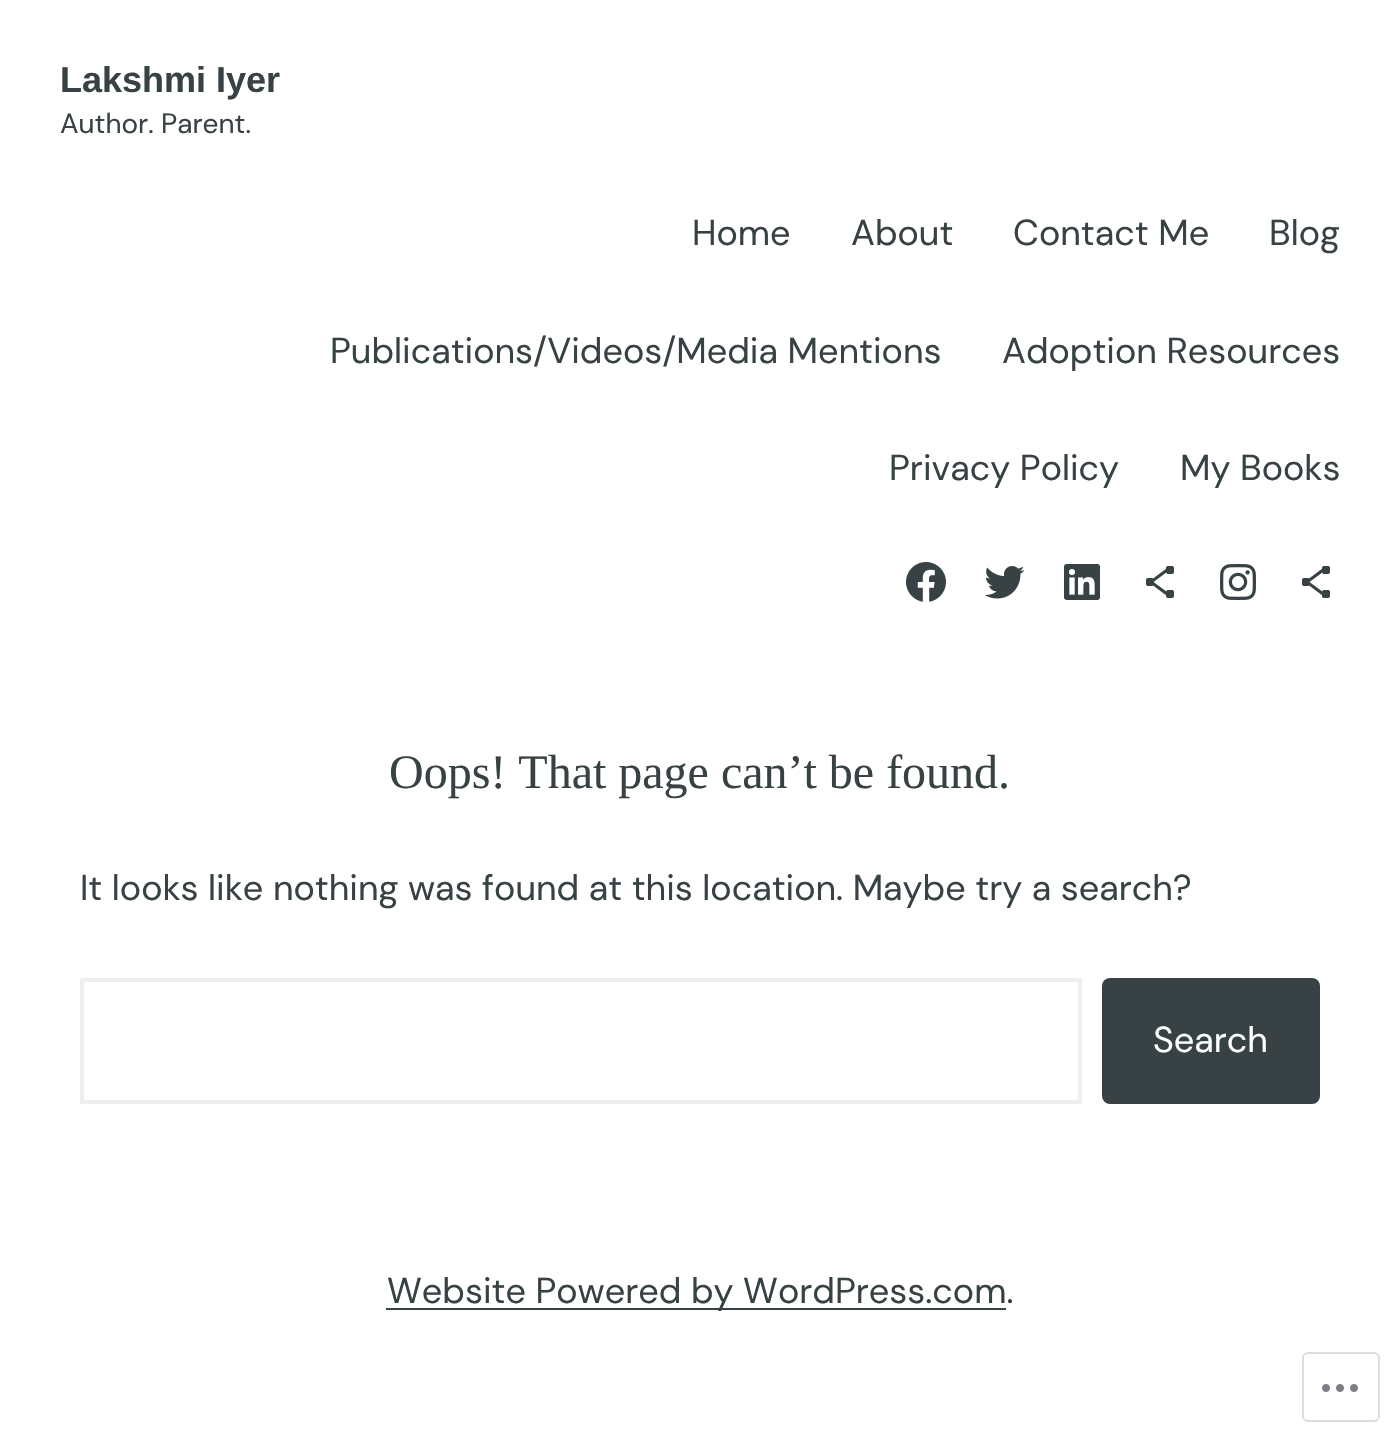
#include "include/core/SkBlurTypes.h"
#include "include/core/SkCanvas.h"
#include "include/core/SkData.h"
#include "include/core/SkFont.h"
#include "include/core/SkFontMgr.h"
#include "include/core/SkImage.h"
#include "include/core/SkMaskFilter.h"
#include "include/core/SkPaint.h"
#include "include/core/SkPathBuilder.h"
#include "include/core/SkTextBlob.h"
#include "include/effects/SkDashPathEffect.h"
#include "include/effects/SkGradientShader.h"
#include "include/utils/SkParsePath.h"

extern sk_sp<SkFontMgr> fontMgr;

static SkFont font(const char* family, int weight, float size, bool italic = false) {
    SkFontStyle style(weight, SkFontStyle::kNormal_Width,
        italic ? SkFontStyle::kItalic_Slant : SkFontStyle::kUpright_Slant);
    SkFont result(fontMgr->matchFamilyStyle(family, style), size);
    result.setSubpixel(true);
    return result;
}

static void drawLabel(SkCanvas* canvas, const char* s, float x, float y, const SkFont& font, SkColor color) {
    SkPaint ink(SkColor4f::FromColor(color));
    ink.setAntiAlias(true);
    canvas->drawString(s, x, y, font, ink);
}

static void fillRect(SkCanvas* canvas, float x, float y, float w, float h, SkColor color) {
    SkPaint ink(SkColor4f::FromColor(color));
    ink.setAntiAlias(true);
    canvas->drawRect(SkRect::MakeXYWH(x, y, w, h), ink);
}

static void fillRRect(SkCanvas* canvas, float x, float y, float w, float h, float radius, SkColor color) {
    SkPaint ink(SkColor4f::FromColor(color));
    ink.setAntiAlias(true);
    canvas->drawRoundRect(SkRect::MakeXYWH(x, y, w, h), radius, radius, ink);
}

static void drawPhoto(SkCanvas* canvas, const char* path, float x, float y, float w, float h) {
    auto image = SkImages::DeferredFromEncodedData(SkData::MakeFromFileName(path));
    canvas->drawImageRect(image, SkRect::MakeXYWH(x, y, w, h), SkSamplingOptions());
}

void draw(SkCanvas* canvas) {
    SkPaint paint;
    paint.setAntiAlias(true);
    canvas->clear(0xFFFFFFFF);
    SkFont font1 = font("Liberation Sans", 700, 36);
    drawLabel(canvas, "Lakshmi Iyer", 60, 92, font1, 0xFF384143);
    SkFont font2 = font("DM Sans", 400, 28);
    drawLabel(canvas, "Author. Parent.", 60, 133, font2, 0xFF384143);
    SkFont font3 = font("DM Sans", 400, 36);
    drawLabel(canvas, "Home", 692, 245, font3, 0xFF384143);
    drawLabel(canvas, "About", 851, 245, font3, 0xFF384143);
    drawLabel(canvas, "Contact Me", 1013, 245, font3, 0xFF384143);
    drawLabel(canvas, "Blog", 1269, 245, font3, 0xFF384143);
    drawLabel(canvas, "Publications/Videos/Media Mentions", 330, 363, font3, 0xFF384143);
    drawLabel(canvas, "Adoption Resources", 1002, 363, font3, 0xFF384143);
    drawLabel(canvas, "Privacy Policy", 889, 480, font3, 0xFF384143);
    drawLabel(canvas, "My Books", 1180, 480, font3, 0xFF384143);
    drawPhoto(canvas, "assets/img1.png", 906, 562, 40, 40);
    drawPhoto(canvas, "assets/img2.png", 984, 566, 41, 33);
    drawPhoto(canvas, "assets/img3.png", 1064, 564, 36, 36);
    drawPhoto(canvas, "assets/img4.png", 1146, 566, 28, 32);
    drawPhoto(canvas, "assets/img5.png", 1220, 564, 36, 36);
    drawPhoto(canvas, "assets/img4.png", 1302, 566, 28, 32);
    SkFont font4 = font("Liberation Serif", 400, 48);
    drawLabel(canvas, "Oops! That page can’t be found.", 389, 788, font4, 0xFF384143);
    drawLabel(canvas, "It looks like nothing was found at this location. Maybe try a search?", 80, 900, font3, 0xFF384143);
    paint.setStroke(true);
    paint.setStrokeWidth(4);
    paint.setColor(0xFFEFEFEF);
    canvas->drawRect(SkRect::MakeXYWH(82, 980, 998, 122), paint);
    fillRRect(canvas, 1102, 978, 218, 126, 8, 0xFF384143);
    drawLabel(canvas, "Search", 1153, 1052, font3, 0xFFFFFFFF);
    fillRect(canvas, 386, 1308, 620, 2, 0xFF384143);
    drawLabel(canvas, "Website Powered by WordPress.com.", 387, 1303, font3, 0xFF384143);
    paint.setStrokeWidth(2);
    paint.setColor(0xFFDDDDDF);
    canvas->drawRoundRect(SkRect::MakeXYWH(1303, 1353, 76, 68), 5, 5, paint);
    drawPhoto(canvas, "assets/img6.png", 1322, 1384, 36, 8);
}
